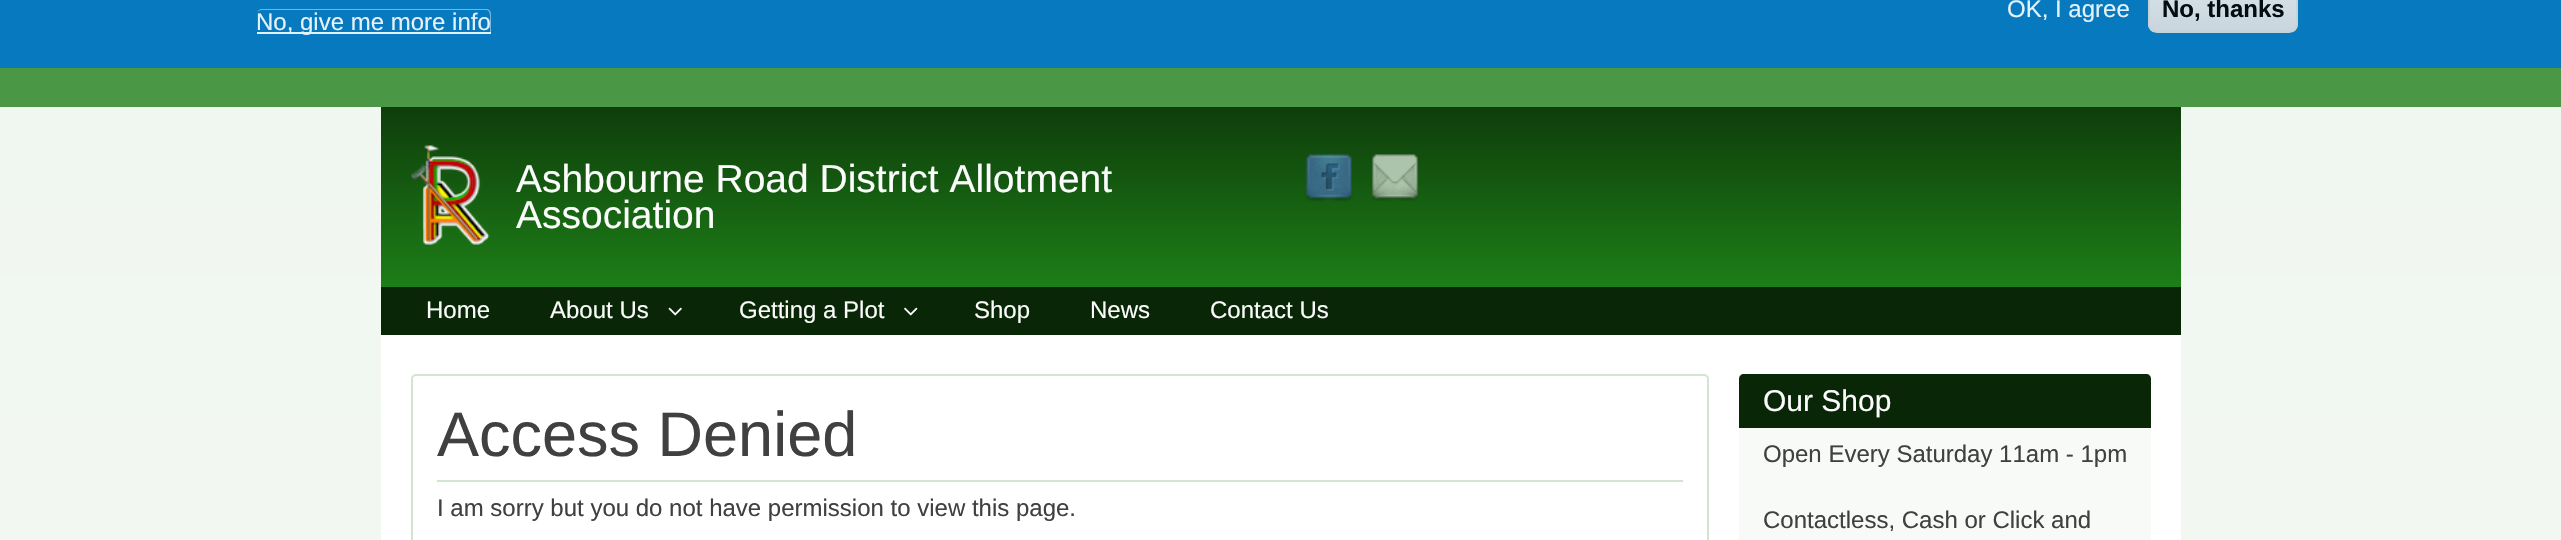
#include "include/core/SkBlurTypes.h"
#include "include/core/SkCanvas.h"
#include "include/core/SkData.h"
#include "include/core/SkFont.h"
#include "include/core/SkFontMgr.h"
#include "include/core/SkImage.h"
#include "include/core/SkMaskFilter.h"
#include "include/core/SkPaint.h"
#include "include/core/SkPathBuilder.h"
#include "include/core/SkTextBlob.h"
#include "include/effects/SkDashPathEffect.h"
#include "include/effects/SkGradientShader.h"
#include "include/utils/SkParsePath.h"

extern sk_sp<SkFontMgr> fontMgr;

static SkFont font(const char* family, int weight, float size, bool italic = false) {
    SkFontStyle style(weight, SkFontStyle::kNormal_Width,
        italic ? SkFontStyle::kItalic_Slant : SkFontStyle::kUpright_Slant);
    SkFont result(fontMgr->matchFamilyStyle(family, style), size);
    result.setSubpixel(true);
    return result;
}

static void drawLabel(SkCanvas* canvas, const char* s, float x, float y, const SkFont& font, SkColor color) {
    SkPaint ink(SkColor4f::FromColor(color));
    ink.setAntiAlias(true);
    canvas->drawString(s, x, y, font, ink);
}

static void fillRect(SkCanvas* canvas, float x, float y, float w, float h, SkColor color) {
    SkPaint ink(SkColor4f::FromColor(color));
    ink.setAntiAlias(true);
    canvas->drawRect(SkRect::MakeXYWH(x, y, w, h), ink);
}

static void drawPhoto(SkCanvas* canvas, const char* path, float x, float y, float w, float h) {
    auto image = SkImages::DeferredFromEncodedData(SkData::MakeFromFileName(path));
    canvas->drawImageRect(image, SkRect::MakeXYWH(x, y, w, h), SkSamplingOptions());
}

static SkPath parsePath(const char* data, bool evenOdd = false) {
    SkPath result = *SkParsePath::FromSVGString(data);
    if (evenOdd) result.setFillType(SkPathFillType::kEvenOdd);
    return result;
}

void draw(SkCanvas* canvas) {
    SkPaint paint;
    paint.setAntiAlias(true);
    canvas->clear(0xFF4A9745);
    fillRect(canvas, 0, 0, 2561, 68, 0xFF0779BF);
    paint.setColor(0xFF77B6DC);
    canvas->drawPath(parsePath("M261 10H486C491 10 490 18 490 21V34C491 33 491 32 491 31V14C491 11 489 9 486 9H262C260 9 258 10 257 12C258 11 260 10 261 10Z"), paint);
    fillRect(canvas, 257, 32, 234, 2, 0xFFE6F2F9);
    SkFont font1 = font("Liberation Sans", 400, 24);
    drawLabel(canvas, "No, give me more info", 256, 30, font1, 0xFFE6F2F9);
    drawLabel(canvas, "OK, I agree", 2007, 17, font1, 0xFFE6F2F9);
    canvas->save();
    canvas->clipPath(parsePath("M2157-15H2289C2294-15 2298-11 2298-6V24C2298 29 2294 33 2289 33H2157C2152 33 2148 29 2148 24V-6C2148-11 2152-15 2157-15Z"), true);
    {
        const SkColor colors[] = {0xFFD6E1E8, 0xFFC9D5DC};
        const float stops[] = {0.05f, 1};
        const SkPoint ends[] = {{2223, -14}, {2223, 32}};
        paint.setShader(SkGradientShader::MakeLinear(ends, colors, stops, 2, SkTileMode::kClamp));
        paint.setAlpha(255);
    }
    canvas->drawRect(SkRect::MakeXYWH(2148, 0, 150, 32), paint);
    canvas->restore();
    paint.setStroke(true);
    paint.setStrokeWidth(2);
    paint.setShader(nullptr);
    paint.setColor(0xFFC7D2D9);
    canvas->drawRoundRect(SkRect::MakeXYWH(2149, -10, 148, 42), 8, 8, paint);
    SkFont font2 = font("Liberation Sans", 700, 24);
    drawLabel(canvas, "No, thanks", 2162, 17, font2, 0xFF010C13);
    paint.setStroke(false);
    {
        const SkColor colors[] = {0xFFF0F6F0, 0xFFFAFCFA};
        const float stops[] = {0, 1};
        const SkPoint ends[] = {{1281, 106}, {1281, 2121}};
        paint.setShader(SkGradientShader::MakeLinear(ends, colors, stops, 2, SkTileMode::kClamp));
        paint.setAlpha(255);
    }
    canvas->drawRect(SkRect::MakeXYWH(0, 107, 2561, 433), paint);
    {
        const SkColor colors[] = {0xFF0E3D0B, 0xFF1D7E17};
        const float stops[] = {0, 1};
        const SkPoint ends[] = {{1281, 106}, {1281, 287}};
        paint.setShader(SkGradientShader::MakeLinear(ends, colors, stops, 2, SkTileMode::kClamp));
        paint.setAlpha(255);
    }
    canvas->drawRect(SkRect::MakeXYWH(381, 107, 1800, 180), paint);
    drawPhoto(canvas, "assets/img1.png", 411, 145, 79, 100);
    SkFont font3 = font("Liberation Sans", 400, 39);
    drawLabel(canvas, "Ashbourne Road District Allotment", 516, 192, font3, 0xFFFCFCFC);
    drawLabel(canvas, "Association", 516, 228, font3, 0xFFFCFCFC);
    drawPhoto(canvas, "assets/img2.png", 1305, 154, 48, 48);
    drawPhoto(canvas, "assets/img3.png", 1372, 154, 46, 47);
    fillRect(canvas, 381, 287, 1800, 48, 0xFF092707);
    drawLabel(canvas, "Home", 426, 318, font1, 0xFFFCFCFC);
    drawLabel(canvas, "About Us", 550, 318, font1, 0xFFFCFCFC);
    drawPhoto(canvas, "assets/img4.png", 668, 307, 14, 9);
    drawLabel(canvas, "Getting a Plot", 739, 318, font1, 0xFFFCFCFC);
    drawPhoto(canvas, "assets/img5.png", 904, 307, 14, 9);
    drawLabel(canvas, "Shop", 974, 318, font1, 0xFFFCFCFC);
    drawLabel(canvas, "News", 1090, 318, font1, 0xFFFCFCFC);
    drawLabel(canvas, "Contact Us", 1210, 318, font1, 0xFFFCFCFC);
    fillRect(canvas, 381, 335, 1800, 205, 0xFFFFFFFF);
    paint.setStroke(true);
    paint.setShader(nullptr);
    paint.setColor(0xFFD1E5D0);
    canvas->drawRoundRect(SkRect::MakeXYWH(412, 375, 1296, 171), 4, 4, paint);
    fillRect(canvas, 437, 480, 1246, 2, 0xFFD1E5D0);
    SkFont font4 = font("Liberation Sans", 400, 63);
    drawLabel(canvas, "Access Denied", 437, 456, font4, 0xFF404040);
    drawLabel(canvas, "I am sorry but you do not have permission to view this page.", 437, 516, font1, 0xFF404040);
    fillRect(canvas, 1739, 374, 412, 166, 0xFFF7FAF7);
    paint.setStroke(false);
    paint.setColor(0xFF092707);
    canvas->drawPath(parsePath("M1744 374H2146C2149 374 2151 376 2151 379V428H1739V379C1739 376 1741 374 1744 374Z"), paint);
    SkFont font5 = font("Liberation Sans", 400, 30);
    drawLabel(canvas, "Our Shop", 1763, 411, font5, 0xFFFCFCFC);
    drawLabel(canvas, "Open Every Saturday 11am - 1pm", 1763, 462, font1, 0xFF404040);
    drawLabel(canvas, "Contactless, Cash or Click and", 1763, 528, font1, 0xFF404040);
}
